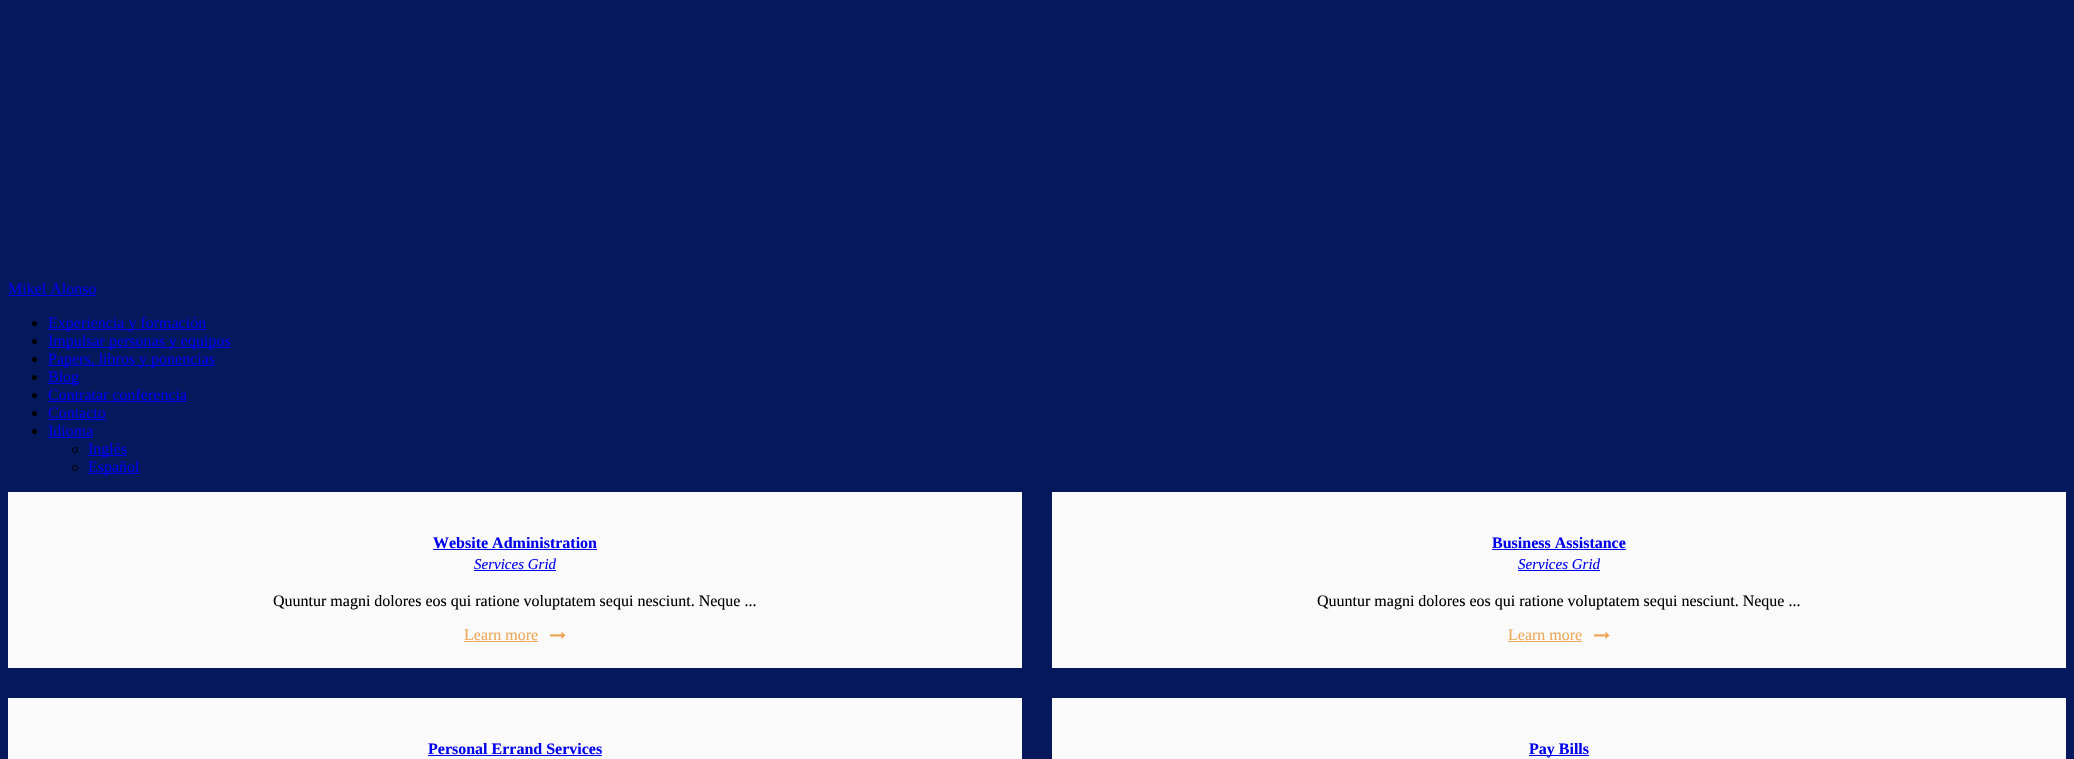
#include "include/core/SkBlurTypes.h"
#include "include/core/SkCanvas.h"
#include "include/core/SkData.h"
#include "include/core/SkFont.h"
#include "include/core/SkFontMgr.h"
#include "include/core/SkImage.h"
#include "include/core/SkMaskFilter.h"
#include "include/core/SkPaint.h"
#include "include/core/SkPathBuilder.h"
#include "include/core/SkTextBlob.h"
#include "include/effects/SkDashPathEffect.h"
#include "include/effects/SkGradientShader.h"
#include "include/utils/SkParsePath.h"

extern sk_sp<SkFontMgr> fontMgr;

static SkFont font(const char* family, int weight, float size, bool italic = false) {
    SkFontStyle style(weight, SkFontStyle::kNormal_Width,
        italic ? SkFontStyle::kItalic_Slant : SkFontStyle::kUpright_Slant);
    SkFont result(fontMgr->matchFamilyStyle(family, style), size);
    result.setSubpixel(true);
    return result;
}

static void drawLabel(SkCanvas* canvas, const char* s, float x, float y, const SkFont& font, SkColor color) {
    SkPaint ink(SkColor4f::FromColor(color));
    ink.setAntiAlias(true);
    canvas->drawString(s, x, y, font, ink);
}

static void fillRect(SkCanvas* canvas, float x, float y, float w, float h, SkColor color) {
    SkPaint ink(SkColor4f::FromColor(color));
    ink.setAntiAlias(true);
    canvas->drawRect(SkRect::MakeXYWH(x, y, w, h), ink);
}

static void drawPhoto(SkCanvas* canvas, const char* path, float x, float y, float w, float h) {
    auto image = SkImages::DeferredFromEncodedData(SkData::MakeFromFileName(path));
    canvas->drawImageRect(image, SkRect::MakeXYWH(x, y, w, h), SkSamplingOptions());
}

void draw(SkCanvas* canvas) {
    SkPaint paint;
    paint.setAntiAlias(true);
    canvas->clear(0xFF05185C);
    SkFont font1 = font("Liberation Serif", 400, 16);
    drawLabel(canvas, "Mikel Alonso", 8, 294, font1, 0xFF0000EE);
    fillRect(canvas, 8, 295, 88, 1, 0xFF0000EE);
    paint.setColor(0xFF000000);
    canvas->drawCircle(34.5f, 323.5f, 2.5f, paint);
    fillRect(canvas, 48, 329, 158, 1, 0xFF0000EE);
    drawLabel(canvas, "Experiencia y formación", 48, 328, font1, 0xFF0000EE);
    canvas->drawCircle(34.5f, 341.5f, 2.5f, paint);
    fillRect(canvas, 48, 347, 183, 1, 0xFF0000EE);
    drawLabel(canvas, "Impulsar personas y equipos", 48, 346, font1, 0xFF0000EE);
    canvas->drawCircle(34.5f, 359.5f, 2.5f, paint);
    fillRect(canvas, 48, 365, 167, 1, 0xFF0000EE);
    drawLabel(canvas, "Papers, libros y ponencias", 48, 364, font1, 0xFF0000EE);
    canvas->drawCircle(34.5f, 377.5f, 2.5f, paint);
    fillRect(canvas, 48, 383, 31, 1, 0xFF0000EE);
    drawLabel(canvas, "Blog", 48, 382, font1, 0xFF0000EE);
    canvas->drawCircle(34.5f, 395.5f, 2.5f, paint);
    drawLabel(canvas, "Contratar conferencia", 48, 400, font1, 0xFF0000EE);
    fillRect(canvas, 48, 401, 139, 1, 0xFF0000EE);
    canvas->drawCircle(34.5f, 413.5f, 2.5f, paint);
    drawLabel(canvas, "Contacto", 48, 418, font1, 0xFF0000EE);
    fillRect(canvas, 48, 419, 58, 1, 0xFF0000EE);
    canvas->drawCircle(34.5f, 431.5f, 2.5f, paint);
    drawLabel(canvas, "Idioma", 48, 436, font1, 0xFF0000EE);
    fillRect(canvas, 48, 437, 45, 1, 0xFF0000EE);
    paint.setStroke(true);
    paint.setStrokeWidth(1);
    canvas->drawCircle(75, 450, 2.5f, paint);
    fillRect(canvas, 88, 455, 39, 1, 0xFF0000EE);
    drawLabel(canvas, "Inglés", 88, 454, font1, 0xFF0000EE);
    canvas->drawCircle(75, 468, 2.5f, paint);
    fillRect(canvas, 88, 473, 52, 1, 0xFF0000EE);
    drawLabel(canvas, "Español", 88, 472, font1, 0xFF0000EE);
    fillRect(canvas, 8, 492, 1014, 176, 0xFFFAFAFA);
    SkFont font2 = font("Liberation Serif", 700, 16);
    drawLabel(canvas, "Website Administration", 433, 548, font2, 0xFF0000EE);
    fillRect(canvas, 433, 549, 164, 1, 0xFF0000EE);
    SkFont font3 = font("Liberation Serif", 400, 15, true);
    drawLabel(canvas, "Services Grid", 474, 569, font3, 0xFF0000EE);
    fillRect(canvas, 474, 570, 82, 1, 0xFF0000EE);
    drawLabel(canvas, "Quuntur magni dolores eos qui ratione voluptatem sequi nesciunt. Neque ...", 273, 606, font1, 0xFF000000);
    drawLabel(canvas, "Learn more", 464, 640, font1, 0xFFEFA758);
    fillRect(canvas, 464, 641, 74, 1, 0xFFEFA758);
    drawPhoto(canvas, "assets/img1.png", 550, 632, 16, 7);
    fillRect(canvas, 1052, 492, 1014, 176, 0xFFFAFAFA);
    drawLabel(canvas, "Business Assistance", 1492, 548, font2, 0xFF0000EE);
    fillRect(canvas, 1492, 549, 134, 1, 0xFF0000EE);
    drawLabel(canvas, "Services Grid", 1518, 569, font3, 0xFF0000EE);
    fillRect(canvas, 1518, 570, 82, 1, 0xFF0000EE);
    drawLabel(canvas, "Quuntur magni dolores eos qui ratione voluptatem sequi nesciunt. Neque ...", 1317, 606, font1, 0xFF000000);
    drawLabel(canvas, "Learn more", 1508, 640, font1, 0xFFEFA758);
    fillRect(canvas, 1508, 641, 74, 1, 0xFFEFA758);
    drawPhoto(canvas, "assets/img1.png", 1594, 632, 16, 7);
    fillRect(canvas, 8, 698, 1014, 61, 0xFFFAFAFA);
    drawLabel(canvas, "Personal Errand Services", 428, 754, font2, 0xFF0000EE);
    fillRect(canvas, 428, 755, 174, 1, 0xFF0000EE);
    fillRect(canvas, 1052, 698, 1014, 61, 0xFFFAFAFA);
    fillRect(canvas, 1529, 755, 60, 1, 0xFF0000EE);
    drawLabel(canvas, "Pay Bills", 1529, 754, font2, 0xFF0000EE);
}
